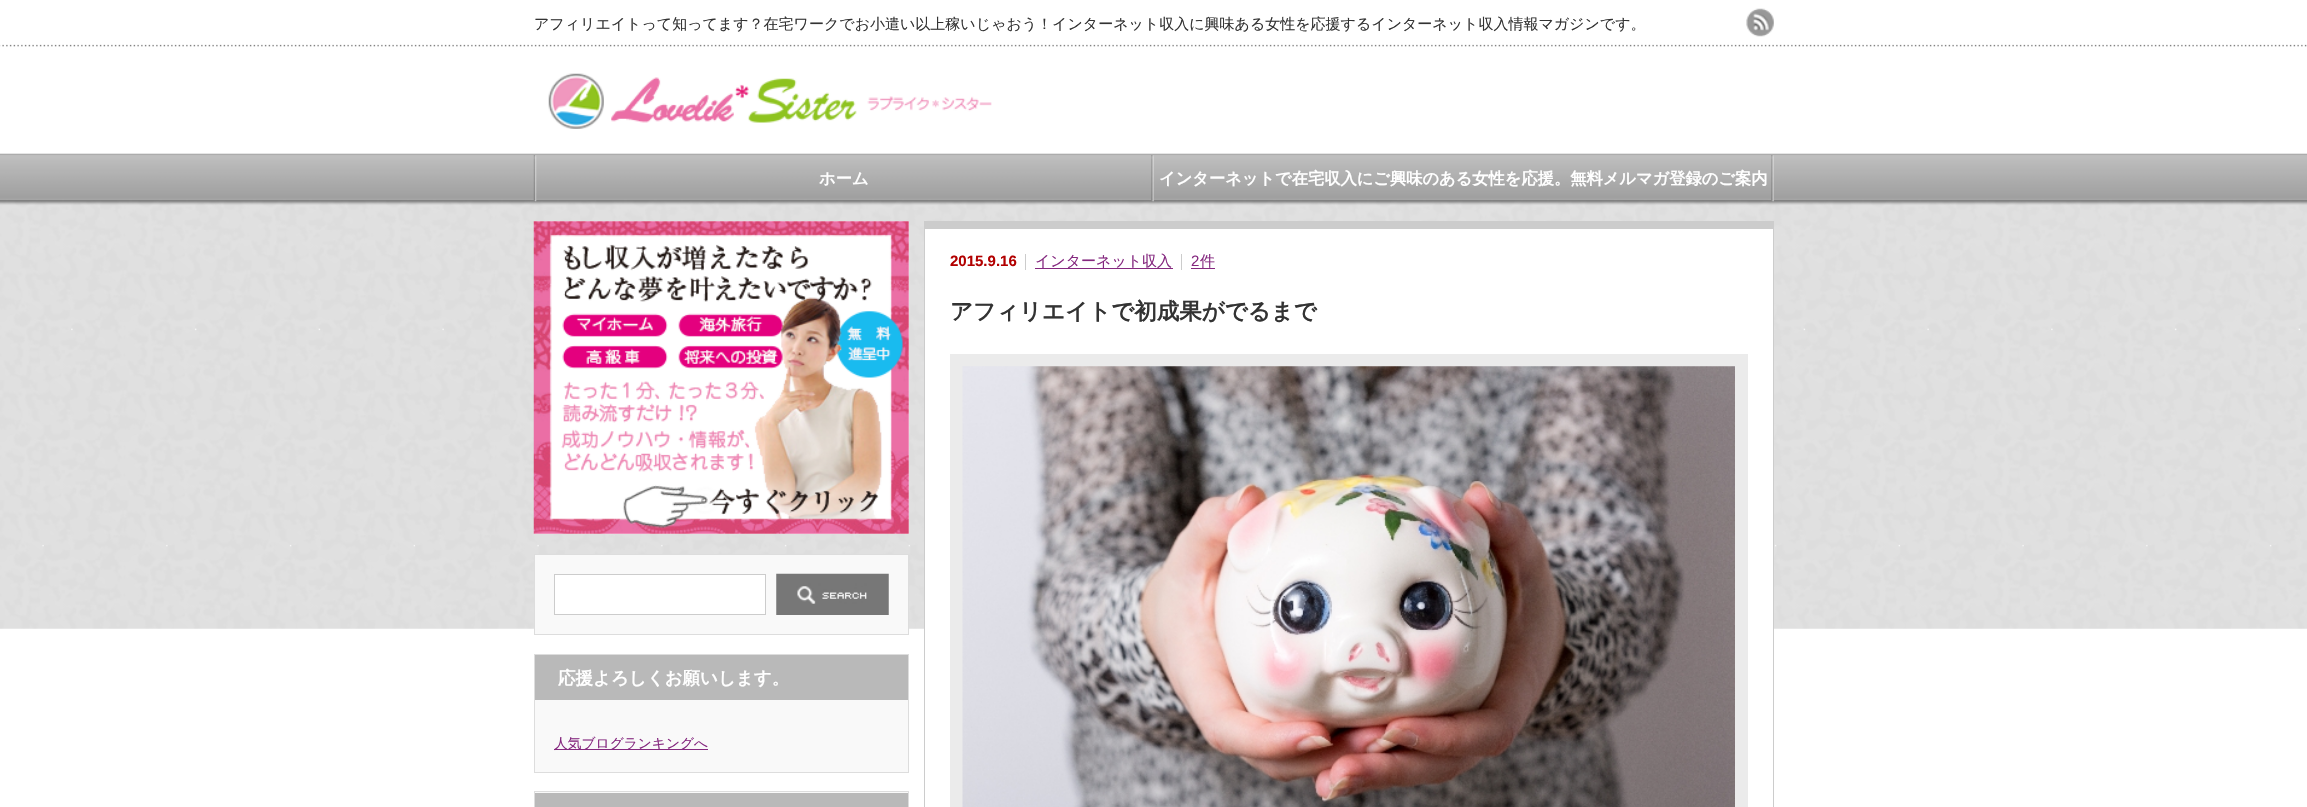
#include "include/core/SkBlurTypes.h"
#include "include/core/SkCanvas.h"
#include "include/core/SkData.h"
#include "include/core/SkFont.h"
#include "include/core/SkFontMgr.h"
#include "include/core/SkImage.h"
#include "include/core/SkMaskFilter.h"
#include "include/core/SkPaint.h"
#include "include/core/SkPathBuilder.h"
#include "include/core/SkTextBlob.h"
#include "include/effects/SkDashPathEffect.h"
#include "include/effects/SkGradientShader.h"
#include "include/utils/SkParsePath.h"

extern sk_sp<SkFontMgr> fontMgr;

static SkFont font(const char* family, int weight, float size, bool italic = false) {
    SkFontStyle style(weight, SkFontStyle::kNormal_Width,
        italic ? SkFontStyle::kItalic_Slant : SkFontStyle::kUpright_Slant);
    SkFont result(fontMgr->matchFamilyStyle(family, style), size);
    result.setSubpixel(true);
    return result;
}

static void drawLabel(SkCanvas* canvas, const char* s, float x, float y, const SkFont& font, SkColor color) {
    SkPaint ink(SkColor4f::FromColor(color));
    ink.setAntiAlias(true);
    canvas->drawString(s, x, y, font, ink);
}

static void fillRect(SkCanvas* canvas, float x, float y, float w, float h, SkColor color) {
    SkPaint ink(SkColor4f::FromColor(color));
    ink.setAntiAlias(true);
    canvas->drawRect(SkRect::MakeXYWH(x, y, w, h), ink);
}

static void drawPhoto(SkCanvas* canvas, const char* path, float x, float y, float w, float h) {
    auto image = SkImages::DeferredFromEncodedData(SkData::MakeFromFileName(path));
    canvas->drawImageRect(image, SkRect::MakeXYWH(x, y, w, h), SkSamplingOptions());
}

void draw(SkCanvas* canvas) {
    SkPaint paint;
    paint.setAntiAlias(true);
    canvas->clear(0xFFFFFFFF);
    drawPhoto(canvas, "assets/img1.png", 0, 44, 2307, 585);
    SkFont font1 = font("WenQuanYi Zen Hei", 500, 15);
    drawLabel(canvas, "アフィリエイトって知ってます？在宅ワークでお小遣い以上稼いじゃおう！インターネット収入に興味ある女性を応援するインターネット収入情報マガジンです。", 534, 29, font1, 0xFF333333);
    drawPhoto(canvas, "assets/img2.png", 1746, 8, 28, 29);
    drawPhoto(canvas, "assets/img3.png", 548, 73, 444, 56);
    drawPhoto(canvas, "assets/img4.png", 533, 155, 4, 47);
    drawPhoto(canvas, "assets/img5.png", 1151, 155, 3, 47);
    SkFont font2 = font("WenQuanYi Zen Hei", 700, 16.25f);
    drawLabel(canvas, "ホーム", 819, 184, font2, 0xFFFFFFFF);
    drawPhoto(canvas, "assets/img6.png", 1771, 155, 3, 47);
    drawLabel(canvas, "インターネットで在宅収入にご興味のある女性を応援。無料メルマガ登録のご案内", 1159, 184, font2, 0xFFFFFFFF);
    fillRect(canvas, 534, 221, 375, 313, 0xFFFFFFFF);
    drawPhoto(canvas, "assets/img7.png", 533, 221, 376, 313);
    fillRect(canvas, 925, 229, 848, 400, 0xFFFFFFFF);
    fillRect(canvas, 924, 221, 850, 8, 0xFFCCCCCC);
    fillRect(canvas, 1773, 221, 1, 586, 0xFFCCCCCC);
    fillRect(canvas, 924, 221, 1, 586, 0xFFCCCCCC);
    fillRect(canvas, 1025, 254, 1, 16, 0xFFCCCCCC);
    SkFont font3 = font("Liberation Sans", 700, 15);
    drawLabel(canvas, "2015.9.16", 950, 266, font3, 0xFFB20000);
    fillRect(canvas, 1181, 254, 1, 16, 0xFFCCCCCC);
    fillRect(canvas, 1035, 268, 138, 1, 0xFF85287F);
    drawLabel(canvas, "インターネット収入", 1035, 266, font1, 0xFF85287F);
    SkFont font4 = font("Liberation Sans", 400, 15);
    drawLabel(canvas, "2", 1191, 266, font4, 0xFF85287F);
    drawLabel(canvas, "件", 1200, 266, font1, 0xFF85287F);
    fillRect(canvas, 1191, 268, 24, 1, 0xFF85287F);
    SkFont font5 = font("WenQuanYi Zen Hei", 700, 22.5f);
    drawLabel(canvas, "アフィリエイトで初成果がでるまで", 950, 319, font5, 0xFF333333);
    fillRect(canvas, 950, 354, 798, 453, 0xFFEBEBEB);
    drawPhoto(canvas, "assets/img8.png", 962, 366, 773, 441);
    paint.setColor(0xFFF9F9F9);
    canvas->drawRect(SkRect::MakeXYWH(534.5f, 554.5f, 374, 80), paint);
    paint.setStroke(true);
    paint.setStrokeWidth(1);
    paint.setColor(0xFFDDDDDD);
    canvas->drawRect(SkRect::MakeXYWH(534.5f, 554.5f, 374, 80), paint);
    paint.setStroke(false);
    paint.setColor(0xFFFFFFFF);
    canvas->drawRect(SkRect::MakeXYWH(554.5f, 574.5f, 211, 40), paint);
    paint.setStroke(true);
    paint.setColor(0xFFCCCCCC);
    canvas->drawRect(SkRect::MakeXYWH(554.5f, 574.5f, 211, 40), paint);
    drawPhoto(canvas, "assets/img9.png", 776, 573, 113, 42);
    fillRect(canvas, 535, 700, 373, 72, 0xFFF9F9F9);
    paint.setColor(0xFFDDDDDD);
    canvas->drawRect(SkRect::MakeXYWH(534.5f, 654.5f, 374, 118), paint);
    fillRect(canvas, 535, 655, 373, 45, 0xFFB9B9B9);
    SkFont font6 = font("WenQuanYi Zen Hei", 700, 17.5f);
    drawLabel(canvas, "応援よろしくお願いします。", 558, 684, font6, 0xFFFFFFFF);
    fillRect(canvas, 554, 749, 154, 1, 0xFF85287F);
    SkFont font7 = font("WenQuanYi Zen Hei", 500, 13.75f);
    drawLabel(canvas, "人気ブログランキングへ", 554, 748, font7, 0xFF85287F);
    fillRect(canvas, 535, 792, 373, 1, 0xFFF9F9F9);
    canvas->drawRect(SkRect::MakeXYWH(534.5f, 791.5f, 374, 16), paint);
    fillRect(canvas, 535, 793, 373, 14, 0xFFB9B9B9);
}
